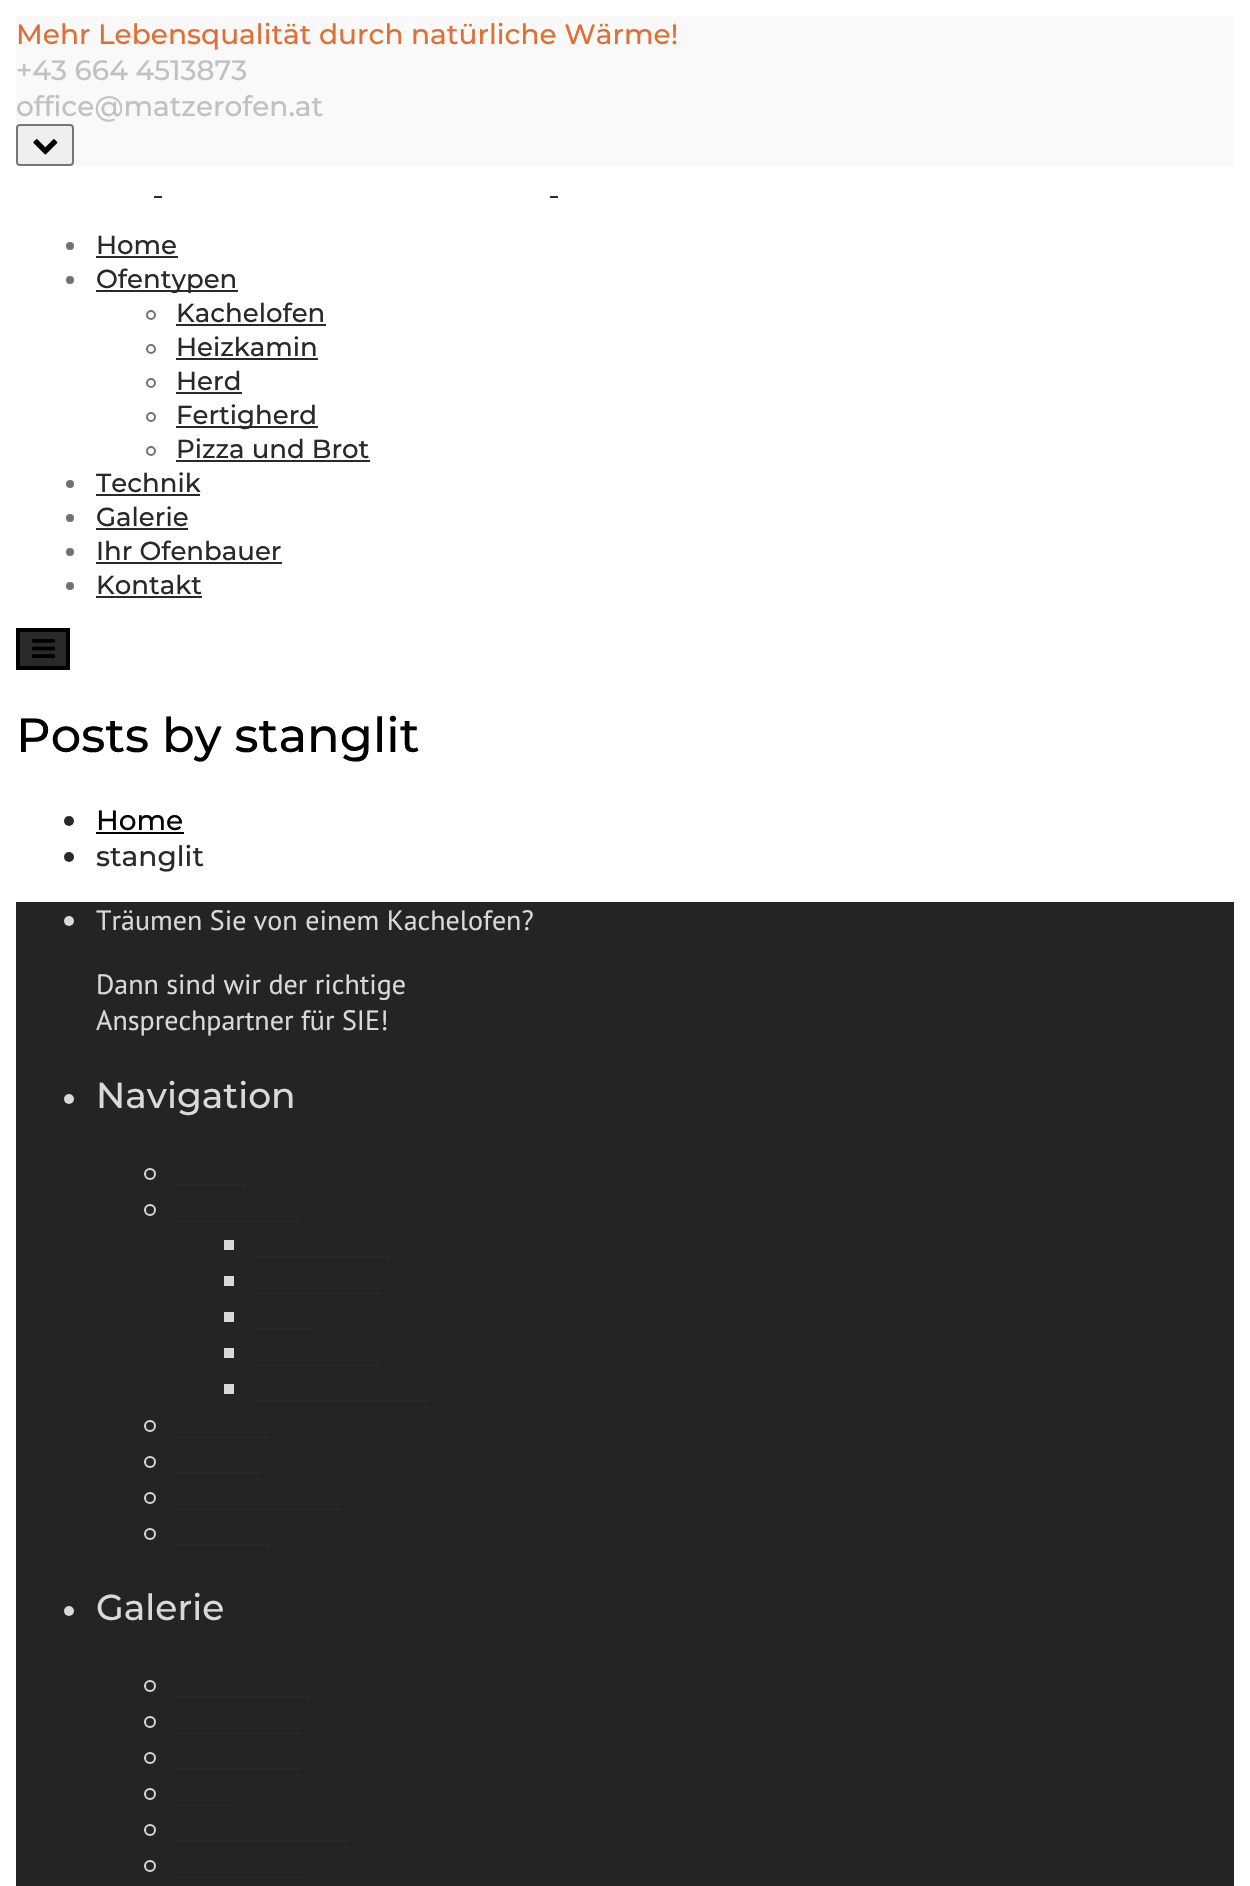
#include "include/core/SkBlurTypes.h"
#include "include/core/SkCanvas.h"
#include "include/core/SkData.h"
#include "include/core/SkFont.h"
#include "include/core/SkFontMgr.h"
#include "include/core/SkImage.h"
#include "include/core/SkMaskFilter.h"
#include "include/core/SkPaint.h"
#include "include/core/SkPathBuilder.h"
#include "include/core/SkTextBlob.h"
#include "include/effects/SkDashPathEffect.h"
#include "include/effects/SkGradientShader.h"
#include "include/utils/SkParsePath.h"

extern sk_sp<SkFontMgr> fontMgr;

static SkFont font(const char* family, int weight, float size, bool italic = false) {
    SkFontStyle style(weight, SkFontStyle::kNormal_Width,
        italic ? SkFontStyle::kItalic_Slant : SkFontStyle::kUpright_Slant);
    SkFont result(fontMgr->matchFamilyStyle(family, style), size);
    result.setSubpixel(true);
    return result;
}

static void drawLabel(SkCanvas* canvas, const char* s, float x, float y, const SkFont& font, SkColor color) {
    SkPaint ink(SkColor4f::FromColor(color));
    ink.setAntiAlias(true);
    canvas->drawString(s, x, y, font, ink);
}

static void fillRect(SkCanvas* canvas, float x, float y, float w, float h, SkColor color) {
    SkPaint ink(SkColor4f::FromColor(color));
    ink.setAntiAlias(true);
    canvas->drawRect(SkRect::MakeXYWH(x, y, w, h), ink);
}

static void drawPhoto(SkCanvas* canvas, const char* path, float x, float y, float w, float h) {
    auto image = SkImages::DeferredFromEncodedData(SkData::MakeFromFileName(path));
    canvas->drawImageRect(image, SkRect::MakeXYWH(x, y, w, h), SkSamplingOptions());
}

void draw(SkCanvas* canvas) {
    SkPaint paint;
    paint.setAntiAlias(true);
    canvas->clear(0xFFFFFFFF);
    fillRect(canvas, 16, 16, 1218, 150, 0xFFF9F9F9);
    SkFont font1 = font("Montserrat", 500, 28);
    drawLabel(canvas, "Mehr Lebensqualität durch natürliche Wärme!", 16, 44, font1, 0xFFE06F35);
    drawLabel(canvas, "+43 664 4513873", 16, 80, font1, 0xFFC1C1C1);
    drawLabel(canvas, "office@matzerofen.at", 16, 116, font1, 0xFFC1C1C1);
    paint.setColor(0xFFEFEFEF);
    canvas->drawRoundRect(SkRect::MakeXYWH(17, 125, 56, 40), 3, 3, paint);
    paint.setStroke(true);
    paint.setStrokeWidth(2);
    paint.setColor(0xFF767676);
    canvas->drawRoundRect(SkRect::MakeXYWH(17, 125, 56, 40), 3, 3, paint);
    drawPhoto(canvas, "assets/img1.png", 33, 139, 25, 16);
    fillRect(canvas, 154, 196, 8, 2, 0xFF292929);
    fillRect(canvas, 550, 196, 8, 2, 0xFF292929);
    paint.setStroke(false);
    paint.setColor(0xFF727272);
    canvas->drawCircle(70, 246, 4, paint);
    SkFont font2 = font("Montserrat", 500, 26);
    drawLabel(canvas, "Home", 96, 254, font2, 0xFF292929);
    fillRect(canvas, 96, 256, 82, 2, 0xFF292929);
    canvas->drawCircle(70, 280, 4, paint);
    fillRect(canvas, 96, 290, 142, 2, 0xFF292929);
    drawLabel(canvas, "Ofentypen", 96, 288, font2, 0xFF292929);
    paint.setStroke(true);
    canvas->drawCircle(151, 315, 4, paint);
    drawLabel(canvas, "Kachelofen", 176, 322, font2, 0xFF292929);
    fillRect(canvas, 176, 324, 150, 2, 0xFF292929);
    canvas->drawCircle(151, 349, 4, paint);
    drawLabel(canvas, "Heizkamin", 176, 356, font2, 0xFF292929);
    fillRect(canvas, 176, 358, 142, 2, 0xFF292929);
    canvas->drawCircle(151, 383, 4, paint);
    drawLabel(canvas, "Herd", 176, 390, font2, 0xFF292929);
    fillRect(canvas, 176, 392, 66, 2, 0xFF292929);
    canvas->drawCircle(151, 417, 4, paint);
    fillRect(canvas, 176, 426, 142, 2, 0xFF292929);
    drawLabel(canvas, "Fertigherd", 176, 424, font2, 0xFF292929);
    canvas->drawCircle(151, 451, 4, paint);
    drawLabel(canvas, "Pizza und Brot", 176, 458, font2, 0xFF292929);
    fillRect(canvas, 176, 460, 194, 2, 0xFF292929);
    paint.setStroke(false);
    canvas->drawCircle(70, 484, 4, paint);
    drawLabel(canvas, "Technik", 96, 492, font2, 0xFF292929);
    fillRect(canvas, 96, 494, 104, 2, 0xFF292929);
    canvas->drawCircle(70, 518, 4, paint);
    drawLabel(canvas, "Galerie", 96, 526, font2, 0xFF292929);
    fillRect(canvas, 96, 528, 92, 2, 0xFF292929);
    canvas->drawCircle(70, 552, 4, paint);
    drawLabel(canvas, "Ihr Ofenbauer", 96, 560, font2, 0xFF292929);
    fillRect(canvas, 96, 562, 186, 2, 0xFF292929);
    canvas->drawCircle(70, 586, 4, paint);
    drawLabel(canvas, "Kontakt", 96, 594, font2, 0xFF292929);
    fillRect(canvas, 96, 596, 106, 2, 0xFF292929);
    paint.setColor(0xFF292929);
    canvas->drawRect(SkRect::MakeXYWH(18, 630, 50, 38), paint);
    paint.setStroke(true);
    paint.setStrokeWidth(4);
    paint.setColor(0xFF000000);
    canvas->drawRect(SkRect::MakeXYWH(18, 630, 50, 38), paint);
    drawPhoto(canvas, "assets/img2.png", 32, 639, 23, 19);
    SkFont font3 = font("Montserrat", 500, 48);
    drawLabel(canvas, "Posts by stanglit", 16, 752, font3, 0xFF000000);
    paint.setStroke(false);
    paint.setColor(0xFF292929);
    canvas->drawCircle(69, 821, 5, paint);
    drawLabel(canvas, "Home", 96, 830, font1, 0xFF000000);
    fillRect(canvas, 96, 832, 88, 2, 0xFF000000);
    canvas->drawCircle(69, 857, 5, paint);
    drawLabel(canvas, "stanglit", 96, 866, font1, 0xFF292929);
    fillRect(canvas, 16, 902, 1218, 984, 0xFF242424);
    paint.setColor(0xFFD9D9D9);
    canvas->drawCircle(69, 921, 5, paint);
    SkFont font4 = font("PT Sans", 400, 28);
    drawLabel(canvas, "Träumen Sie von einem Kachelofen?", 96, 930, font4, 0xFFD9D9D9);
    drawLabel(canvas, "Dann sind wir der richtige", 96, 994, font4, 0xFFD9D9D9);
    drawLabel(canvas, "Ansprechpartner für SIE!", 96, 1030, font4, 0xFFD9D9D9);
    canvas->drawCircle(69, 1099, 5, paint);
    SkFont font5 = font("Montserrat", 500, 36);
    drawLabel(canvas, "Navigation", 96, 1108, font5, 0xFFD9D9D9);
    paint.setStroke(true);
    paint.setStrokeWidth(2);
    canvas->drawCircle(150, 1174, 5, paint);
    fillRect(canvas, 176, 1184, 70, 2, 0xFF292929);
    canvas->drawCircle(150, 1210, 5, paint);
    fillRect(canvas, 176, 1220, 124, 2, 0xFF292929);
    fillRect(canvas, 224, 1240, 10, 10, 0xFFD9D9D9);
    fillRect(canvas, 256, 1256, 134, 2, 0xFF292929);
    fillRect(canvas, 224, 1276, 10, 10, 0xFFD9D9D9);
    fillRect(canvas, 256, 1292, 126, 2, 0xFF292929);
    fillRect(canvas, 224, 1312, 10, 10, 0xFFD9D9D9);
    fillRect(canvas, 256, 1328, 58, 2, 0xFF292929);
    fillRect(canvas, 224, 1348, 10, 10, 0xFFD9D9D9);
    fillRect(canvas, 256, 1364, 124, 2, 0xFF292929);
    fillRect(canvas, 224, 1384, 10, 10, 0xFFD9D9D9);
    fillRect(canvas, 256, 1400, 172, 2, 0xFF292929);
    canvas->drawCircle(150, 1426, 5, paint);
    fillRect(canvas, 176, 1436, 94, 2, 0xFF292929);
    canvas->drawCircle(150, 1462, 5, paint);
    fillRect(canvas, 176, 1472, 84, 2, 0xFF292929);
    canvas->drawCircle(150, 1498, 5, paint);
    fillRect(canvas, 176, 1508, 166, 2, 0xFF292929);
    canvas->drawCircle(150, 1534, 5, paint);
    fillRect(canvas, 176, 1544, 94, 2, 0xFF292929);
    paint.setStroke(false);
    canvas->drawCircle(69, 1611, 5, paint);
    drawLabel(canvas, "Galerie", 96, 1620, font5, 0xFFD9D9D9);
    paint.setStroke(true);
    canvas->drawCircle(150, 1686, 5, paint);
    fillRect(canvas, 176, 1696, 134, 2, 0xFF292929);
    canvas->drawCircle(150, 1722, 5, paint);
    fillRect(canvas, 176, 1732, 126, 2, 0xFF292929);
    canvas->drawCircle(150, 1758, 5, paint);
    fillRect(canvas, 176, 1768, 124, 2, 0xFF292929);
    canvas->drawCircle(150, 1794, 5, paint);
    fillRect(canvas, 176, 1804, 58, 2, 0xFF292929);
    canvas->drawCircle(150, 1830, 5, paint);
    fillRect(canvas, 176, 1840, 172, 2, 0xFF292929);
    canvas->drawCircle(150, 1866, 5, paint);
    fillRect(canvas, 176, 1876, 128, 2, 0xFF292929);
}
